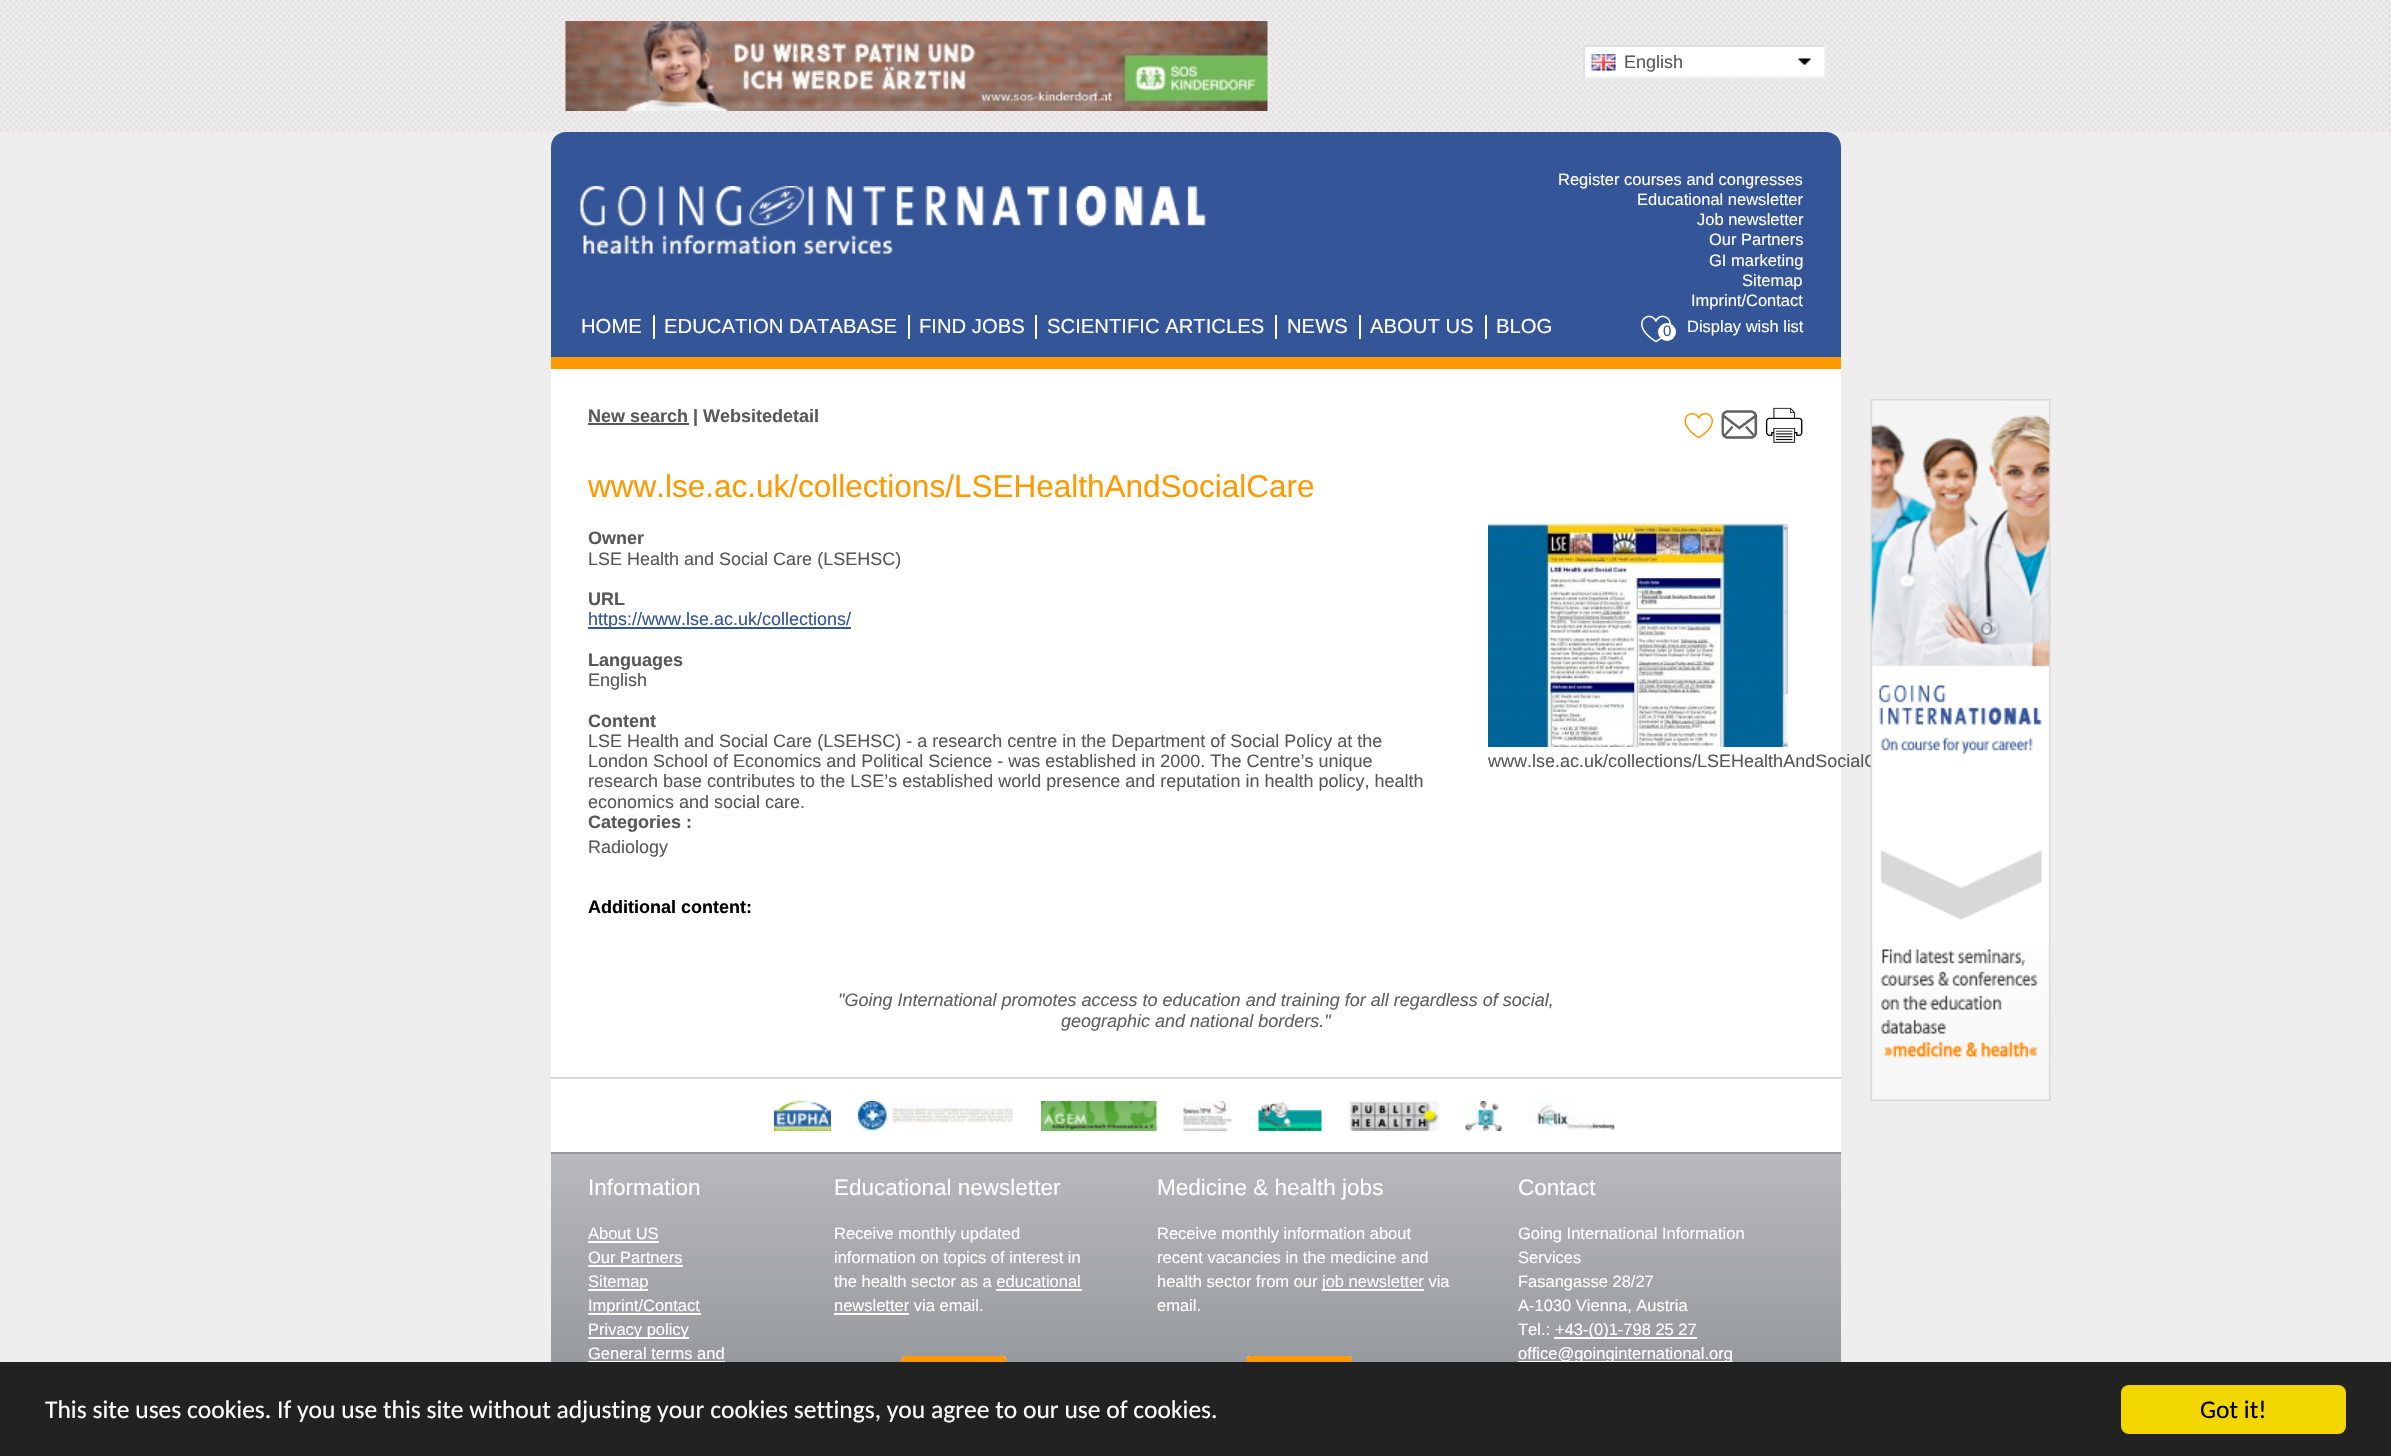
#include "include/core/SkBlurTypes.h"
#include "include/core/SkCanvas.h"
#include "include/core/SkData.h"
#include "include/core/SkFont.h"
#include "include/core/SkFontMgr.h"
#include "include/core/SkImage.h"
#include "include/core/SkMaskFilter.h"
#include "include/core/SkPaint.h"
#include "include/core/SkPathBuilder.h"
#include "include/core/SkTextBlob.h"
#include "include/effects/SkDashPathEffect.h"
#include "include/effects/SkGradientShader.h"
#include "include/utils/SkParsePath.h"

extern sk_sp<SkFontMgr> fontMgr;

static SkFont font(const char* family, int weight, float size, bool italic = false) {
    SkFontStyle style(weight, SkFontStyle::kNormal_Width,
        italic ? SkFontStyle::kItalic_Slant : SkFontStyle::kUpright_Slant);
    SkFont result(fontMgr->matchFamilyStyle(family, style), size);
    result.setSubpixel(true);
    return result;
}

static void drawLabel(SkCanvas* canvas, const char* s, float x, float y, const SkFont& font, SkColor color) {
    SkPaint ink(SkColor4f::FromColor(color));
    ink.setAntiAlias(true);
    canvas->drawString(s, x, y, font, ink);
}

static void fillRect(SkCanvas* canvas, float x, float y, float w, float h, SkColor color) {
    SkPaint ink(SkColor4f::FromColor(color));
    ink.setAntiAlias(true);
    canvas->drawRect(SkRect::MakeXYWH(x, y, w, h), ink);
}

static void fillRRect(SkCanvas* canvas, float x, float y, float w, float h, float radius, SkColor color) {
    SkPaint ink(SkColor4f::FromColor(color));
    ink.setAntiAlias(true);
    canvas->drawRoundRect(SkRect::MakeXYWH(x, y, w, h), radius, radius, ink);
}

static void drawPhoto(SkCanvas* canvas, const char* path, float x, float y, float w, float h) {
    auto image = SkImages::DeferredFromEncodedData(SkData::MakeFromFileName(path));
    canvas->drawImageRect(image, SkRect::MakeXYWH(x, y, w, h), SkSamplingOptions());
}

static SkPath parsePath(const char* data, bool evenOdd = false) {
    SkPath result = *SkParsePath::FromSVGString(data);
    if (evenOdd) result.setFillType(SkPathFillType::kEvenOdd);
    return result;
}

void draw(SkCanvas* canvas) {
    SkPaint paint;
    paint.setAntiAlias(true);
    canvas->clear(0xFFEEEEEE);
    drawPhoto(canvas, "assets/img1.png", 0, 0, 2391, 132);
    drawPhoto(canvas, "assets/img2.png", 565, 21, 703, 90);
    fillRect(canvas, 1585, 47, 239, 30, 0xFFFFFFFF);
    fillRect(canvas, 1583, 45, 243, 2, 0xFFDFDFDF);
    fillRect(canvas, 1824, 45, 2, 33, 0xFFEFEFEF);
    fillRect(canvas, 1583, 77, 243, 2, 0xFFEFEFEF);
    fillRect(canvas, 1583, 45, 2, 33, 0xFFDFDFDF);
    drawPhoto(canvas, "assets/img3.png", 1591, 54, 25, 17);
    SkFont font1 = font("Liberation Sans", 400, 18);
    drawLabel(canvas, "English", 1624, 68, font1, 0xFF585858);
    drawPhoto(canvas, "assets/img4.png", 1798, 58, 13, 7);
    paint.setColor(0xFF345597);
    canvas->drawPath(parsePath("M566 132H1826C1834.5 132 1841 138.5 1841 147V369H551V147C551 138.5 557.5 132 566 132Z"), paint);
    fillRect(canvas, 551, 357, 1290, 12, 0xFFFF9900);
    drawPhoto(canvas, "assets/img5.png", 580, 186, 626, 68);
    SkFont font2 = font("Liberation Sans", 400, 16.5f);
    drawLabel(canvas, "Register courses and congresses", 1558, 185, font2, 0xFFFFFFFF);
    drawLabel(canvas, "Educational newsletter", 1637, 205, font2, 0xFFFFFFFF);
    drawLabel(canvas, "Job newsletter", 1697, 225, font2, 0xFFFFFFFF);
    drawLabel(canvas, "Our Partners", 1709, 245, font2, 0xFFFFFFFF);
    drawLabel(canvas, "GI marketing", 1709, 266, font2, 0xFFFFFFFF);
    drawLabel(canvas, "Sitemap", 1742, 286, font2, 0xFFFFFFFF);
    drawLabel(canvas, "Imprint/Contact", 1691, 306, font2, 0xFFFFFFFF);
    fillRect(canvas, 653, 315, 2, 24, 0xFFFFFFFF);
    SkFont font3 = font("Liberation Sans", 400, 20.25f);
    drawLabel(canvas, "HOME", 581, 333, font3, 0xFFFFFFFF);
    fillRect(canvas, 908, 315, 2, 24, 0xFFFFFFFF);
    drawLabel(canvas, "EDUCATION DATABASE", 664, 333, font3, 0xFFFFFFFF);
    fillRect(canvas, 1035, 315, 2, 24, 0xFFFFFFFF);
    drawLabel(canvas, "FIND JOBS", 919, 333, font3, 0xFFFFFFFF);
    fillRect(canvas, 1275, 315, 2, 24, 0xFFFFFFFF);
    drawLabel(canvas, "SCIENTIFIC ARTICLES", 1047, 333, font3, 0xFFFFFFFF);
    fillRect(canvas, 1359, 315, 2, 24, 0xFFFFFFFF);
    drawLabel(canvas, "NEWS", 1287, 333, font3, 0xFFFFFFFF);
    fillRect(canvas, 1485, 315, 2, 24, 0xFFFFFFFF);
    drawLabel(canvas, "ABOUT US", 1370, 333, font3, 0xFFFFFFFF);
    drawLabel(canvas, "BLOG", 1496, 333, font3, 0xFFFFFFFF);
    drawPhoto(canvas, "assets/img6.png", 1641, 315, 30, 28);
    paint.setColor(0xFFFFFFFF);
    canvas->drawCircle(1667, 332, 9, paint);
    SkFont font4 = font("Liberation Sans", 400, 15);
    drawLabel(canvas, "0", 1663, 336, font4, 0xFF345597);
    drawLabel(canvas, "Display wish list", 1687, 332, font2, 0xFFFFFFFF);
    fillRect(canvas, 551, 369, 1290, 708, 0xFFFFFFFF);
    fillRect(canvas, 588, 423, 101, 2, 0xFF585858);
    SkFont font5 = font("Liberation Sans", 700, 18);
    drawLabel(canvas, "New search | Websitedetail", 588, 422, font5, 0xFF585858);
    drawPhoto(canvas, "assets/img7.png", 1684, 412, 29, 27);
    drawPhoto(canvas, "assets/img8.png", 1721, 410, 37, 29);
    drawPhoto(canvas, "assets/img9.png", 1765, 407, 38, 36);
    SkFont font6 = font("Liberation Sans", 400, 31.5f);
    drawLabel(canvas, "www.lse.ac.uk/collections/LSEHealthAndSocialCare", 588, 497, font6, 0xFFFF9900);
    drawLabel(canvas, "Owner", 588, 544, font5, 0xFF585858);
    drawLabel(canvas, "LSE Health and Social Care (LSEHSC)", 588, 565, font1, 0xFF585858);
    drawLabel(canvas, "URL", 588, 605, font5, 0xFF585858);
    fillRect(canvas, 588, 627, 263, 2, 0xFF345597);
    drawLabel(canvas, "https://www.lse.ac.uk/collections/", 588, 625, font1, 0xFF345597);
    drawLabel(canvas, "Languages", 588, 666, font5, 0xFF585858);
    drawLabel(canvas, "English", 588, 686, font1, 0xFF585858);
    drawLabel(canvas, "Content", 588, 727, font5, 0xFF585858);
    drawLabel(canvas, "LSE Health and Social Care (LSEHSC) - a research centre in the Department of Social Policy at the", 588, 747, font1, 0xFF585858);
    drawLabel(canvas, "London School of Economics and Political Science - was established in 2000. The Centre’s unique", 588, 767, font1, 0xFF585858);
    drawPhoto(canvas, "assets/img10.png", 1488, 523, 300, 224);
    drawLabel(canvas, "www.lse.ac.uk/collections/LSEHealthAndSocialC", 1488, 767, font1, 0xFF585858);
    drawLabel(canvas, "research base contributes to the LSE’s established world presence and reputation in health policy, health", 588, 787, font1, 0xFF585858);
    drawLabel(canvas, "economics and social care.", 588, 808, font1, 0xFF585858);
    drawLabel(canvas, "Categories :", 588, 828, font5, 0xFF585858);
    drawLabel(canvas, "Radiology", 588, 853, font1, 0xFF585858);
    drawLabel(canvas, "Additional content:", 588, 913, font5, 0xFF000000);
    SkFont font7 = font("Liberation Sans", 400, 18, true);
    drawLabel(canvas, "\"Going International promotes access to education and training for all regardless of social,", 838, 1006, font7, 0xFF606060);
    drawLabel(canvas, "geographic and national borders.\"", 1061, 1027, font7, 0xFF606060);
    drawPhoto(canvas, "assets/img11.png", 1870, 399, 181, 702);
    fillRect(canvas, 551, 1079, 1290, 73, 0xFFFFFFFF);
    fillRect(canvas, 551, 1077, 1290, 2, 0xFFD8D8D8);
    drawPhoto(canvas, "assets/img12.png", 774, 1101, 57, 30);
    drawPhoto(canvas, "assets/img13.png", 858, 1101, 156, 30);
    drawPhoto(canvas, "assets/img14.png", 1041, 1101, 116, 30);
    drawPhoto(canvas, "assets/img15.png", 1183, 1101, 49, 30);
    drawPhoto(canvas, "assets/img16.png", 1258, 1101, 64, 30);
    drawPhoto(canvas, "assets/img17.png", 1348, 1101, 91, 30);
    drawPhoto(canvas, "assets/img18.png", 1465, 1101, 37, 30);
    drawPhoto(canvas, "assets/img19.png", 1528, 1101, 88, 30);
    {
        const SkColor colors[] = {0xFFB7B9BC, 0xFF8D9196};
        const float stops[] = {0, 1};
        const SkPoint ends[] = {{1196, 1154}, {1196, 1424}};
        paint.setShader(SkGradientShader::MakeLinear(ends, colors, stops, 2, SkTileMode::kClamp));
        paint.setAlpha(255);
    }
    canvas->drawRect(SkRect::MakeXYWH(551, 1154, 1290, 208), paint);
    fillRect(canvas, 551, 1152, 1290, 2, 0xFF999999);
    SkFont font8 = font("Liberation Sans", 400, 22.5f);
    drawLabel(canvas, "Information", 588, 1195, font8, 0xFFFFFFFF);
    drawLabel(canvas, "About US", 588, 1239, font2, 0xFFFFFFFF);
    fillRect(canvas, 588, 1241, 71, 2, 0xFFFFFFFF);
    drawLabel(canvas, "Our Partners", 588, 1263, font2, 0xFFFFFFFF);
    fillRect(canvas, 588, 1265, 95, 2, 0xFFFFFFFF);
    fillRect(canvas, 588, 1289, 60, 2, 0xFFFFFFFF);
    drawLabel(canvas, "Sitemap", 588, 1287, font2, 0xFFFFFFFF);
    fillRect(canvas, 588, 1313, 113, 2, 0xFFFFFFFF);
    drawLabel(canvas, "Imprint/Contact", 588, 1311, font2, 0xFFFFFFFF);
    fillRect(canvas, 588, 1337, 101, 2, 0xFFFFFFFF);
    drawLabel(canvas, "Privacy policy", 588, 1335, font2, 0xFFFFFFFF);
    drawLabel(canvas, "General terms and", 588, 1359, font2, 0xFFFFFFFF);
    fillRect(canvas, 588, 1361, 137, 1, 0xFFFFFFFF);
    drawLabel(canvas, "Educational newsletter", 834, 1195, font8, 0xFFFFFFFF);
    drawLabel(canvas, "Receive monthly updated", 834, 1239, font2, 0xFFFFFFFF);
    drawLabel(canvas, "information on topics of interest in", 834, 1263, font2, 0xFFFFFFFF);
    drawLabel(canvas, "the health sector as a educational", 834, 1287, font2, 0xFFFFFFFF);
    drawLabel(canvas, "newsletter via email.", 834, 1311, font2, 0xFFFFFFFF);
    fillRect(canvas, 996, 1289, 86, 2, 0xFFFFFFFF);
    fillRect(canvas, 834, 1313, 75, 2, 0xFFFFFFFF);
    drawPhoto(canvas, "assets/img20.png", 901, 1356, 106, 6);
    drawLabel(canvas, "Medicine & health jobs", 1157, 1195, font8, 0xFFFFFFFF);
    drawLabel(canvas, "Receive monthly information about", 1157, 1239, font2, 0xFFFFFFFF);
    drawLabel(canvas, "recent vacancies in the medicine and", 1157, 1263, font2, 0xFFFFFFFF);
    drawLabel(canvas, "health sector from our", 1157, 1287, font2, 0xFFFFFFFF);
    fillRect(canvas, 1322, 1289, 102, 2, 0xFFFFFFFF);
    drawLabel(canvas, "job newsletter via", 1322, 1287, font2, 0xFFFFFFFF);
    drawLabel(canvas, "email.", 1157, 1311, font2, 0xFFFFFFFF);
    drawPhoto(canvas, "assets/img21.png", 1246, 1356, 106, 6);
    drawLabel(canvas, "Contact", 1518, 1195, font8, 0xFFFFFFFF);
    drawLabel(canvas, "Going International Information", 1518, 1239, font2, 0xFFFFFFFF);
    drawLabel(canvas, "Services", 1518, 1263, font2, 0xFFFFFFFF);
    drawLabel(canvas, "Fasangasse 28/27", 1518, 1287, font2, 0xFFFFFFFF);
    drawLabel(canvas, "A-1030 Vienna, Austria", 1518, 1311, font2, 0xFFFFFFFF);
    drawLabel(canvas, "Tel.:", 1518, 1335, font2, 0xFFFFFFFF);
    fillRect(canvas, 1554, 1337, 143, 2, 0xFFFFFFFF);
    drawLabel(canvas, "+43-(0)1-798 25 27", 1555, 1335, font2, 0xFFFFFFFF);
    fillRect(canvas, 1518, 1361, 215, 1, 0xFFFFFFFF);
    drawLabel(canvas, "office@goinginternational.org", 1518, 1359, font2, 0xFFFFFFFF);
    fillRect(canvas, 0, 1362, 2391, 94, 0xFF222222);
    SkFont font9 = font("Carlito", 400, 25.5f);
    drawLabel(canvas, "This site uses cookies. If you use this site without adjusting your cookies settings, you agree to our use of cookies.", 45, 1418, font9, 0xFFFFFFFF);
    fillRRect(canvas, 2121, 1385, 225, 49, 8, 0xFFF1D600);
    drawLabel(canvas, "Got it!", 2200, 1418, font9, 0xFF000000);
}
